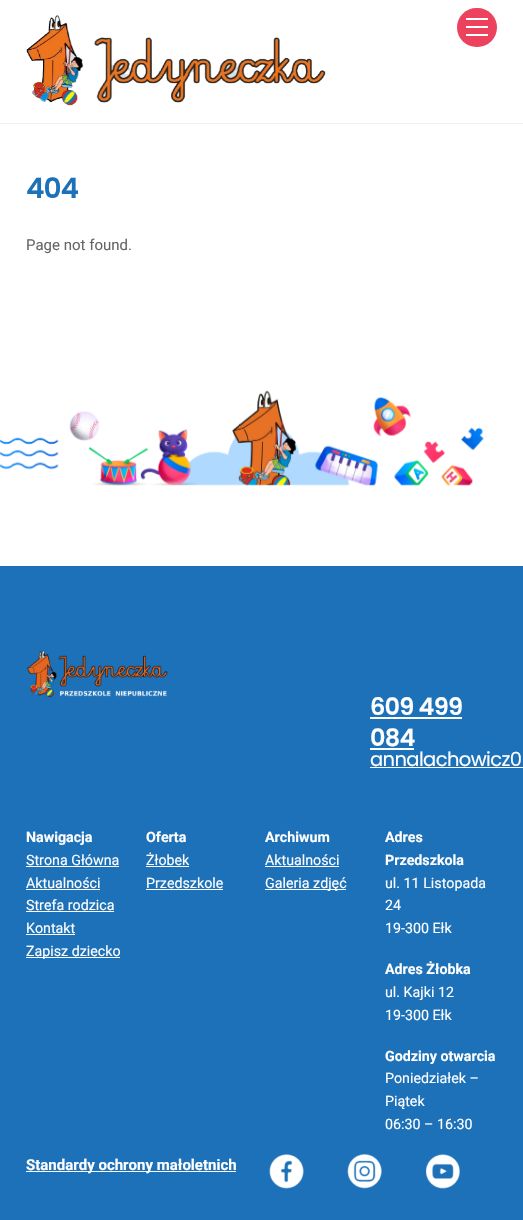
#include "include/core/SkBlurTypes.h"
#include "include/core/SkCanvas.h"
#include "include/core/SkData.h"
#include "include/core/SkFont.h"
#include "include/core/SkFontMgr.h"
#include "include/core/SkImage.h"
#include "include/core/SkMaskFilter.h"
#include "include/core/SkPaint.h"
#include "include/core/SkPathBuilder.h"
#include "include/core/SkTextBlob.h"
#include "include/effects/SkDashPathEffect.h"
#include "include/effects/SkGradientShader.h"
#include "include/utils/SkParsePath.h"

extern sk_sp<SkFontMgr> fontMgr;

static SkFont font(const char* family, int weight, float size, bool italic = false) {
    SkFontStyle style(weight, SkFontStyle::kNormal_Width,
        italic ? SkFontStyle::kItalic_Slant : SkFontStyle::kUpright_Slant);
    SkFont result(fontMgr->matchFamilyStyle(family, style), size);
    result.setSubpixel(true);
    return result;
}

static void drawLabel(SkCanvas* canvas, const char* s, float x, float y, const SkFont& font, SkColor color) {
    SkPaint ink(SkColor4f::FromColor(color));
    ink.setAntiAlias(true);
    canvas->drawString(s, x, y, font, ink);
}

static void drawTracked(SkCanvas* canvas, const char* s, float x, float y, const SkFont& font, const SkPaint& ink, float letter, float word) {
    std::vector<SkGlyphID> glyphs(font.countText(s, strlen(s), SkTextEncoding::kUTF8));
    std::vector<float> xs(glyphs.size());
    font.textToGlyphs(s, strlen(s), SkTextEncoding::kUTF8, glyphs);
    font.getXPos(glyphs, xs, x);
    float extra = 0;
    for (size_t i = 0; i < glyphs.size(); i++) {
        xs[i] += extra;
        extra += letter + word * (glyphs[i] == font.unicharToGlyph(' '));
    }
    canvas->drawTextBlob(SkTextBlob::MakeFromPosHGlyphs(glyphs, xs, y, font), 0, 0, ink);
}

static void fillRect(SkCanvas* canvas, float x, float y, float w, float h, SkColor color) {
    SkPaint ink(SkColor4f::FromColor(color));
    ink.setAntiAlias(true);
    canvas->drawRect(SkRect::MakeXYWH(x, y, w, h), ink);
}

static void fillRRect(SkCanvas* canvas, float x, float y, float w, float h, float radius, SkColor color) {
    SkPaint ink(SkColor4f::FromColor(color));
    ink.setAntiAlias(true);
    canvas->drawRoundRect(SkRect::MakeXYWH(x, y, w, h), radius, radius, ink);
}

static void drawPhoto(SkCanvas* canvas, const char* path, float x, float y, float w, float h) {
    auto image = SkImages::DeferredFromEncodedData(SkData::MakeFromFileName(path));
    canvas->drawImageRect(image, SkRect::MakeXYWH(x, y, w, h), SkSamplingOptions());
}

void draw(SkCanvas* canvas) {
    SkPaint paint;
    paint.setAntiAlias(true);
    canvas->clear(0xFFFFFFFF);
    fillRect(canvas, 0, 123, 523, 1, 0xFFF2F2F2);
    drawPhoto(canvas, "assets/img1.png", 26, 15, 300, 91);
    fillRRect(canvas, 457, 8, 40, 39, 19.5f, 0xFFEC425E);
    fillRect(canvas, 466, 34, 22, 2, 0xFFFFFFFF);
    fillRect(canvas, 466, 18, 22, 2, 0xFFFFFFFF);
    fillRect(canvas, 466, 26, 22, 2, 0xFFFFFFFF);
    SkFont font1 = font("Poppins", 600, 28);
    paint.setColor(0xFF1D71B8);
    drawTracked(canvas, "404", 26, 198, font1, paint, -1, 0);
    SkFont font2 = font("Roboto", 400, 15);
    drawLabel(canvas, "Page not found.", 26, 250, font2, 0xFF666666);
    drawPhoto(canvas, "assets/img2.png", 0, 390, 484, 96);
    fillRect(canvas, 0, 566, 523, 654, 0xFF1D71B8);
    drawPhoto(canvas, "assets/img3.png", 26, 650, 142, 48);
    SkFont font3 = font("Poppins", 600, 24);
    paint.setColor(0xFFFFFFFF);
    drawTracked(canvas, "609 499", 370, 715, font3, paint, -0.75f, 0);
    fillRect(canvas, 370, 717, 92, 2, 0xFFFFFFFF);
    drawTracked(canvas, "084", 370, 746, font3, paint, -0.75f, 0);
    fillRect(canvas, 370, 748, 44, 2, 0xFFFFFFFF);
    SkFont font4 = font("Poppins", 400, 19.5f);
    drawTracked(canvas, "annalachowicz0", 370, 766, font4, paint, -0.6f, 0);
    fillRect(canvas, 370, 767, 153, 1, 0xFFFFFFFF);
    SkFont font5 = font("Roboto", 700, 14.25f);
    drawLabel(canvas, "Nawigacja", 26, 842, font5, 0xFFFFFFFF);
    SkFont font6 = font("Roboto", 400, 14.25f);
    drawLabel(canvas, "Strona Główna", 26, 865, font6, 0xFFFFFFFF);
    fillRect(canvas, 26, 866, 93, 1, 0xFFFFFFFF);
    drawLabel(canvas, "Aktualności", 26, 888, font6, 0xFFFFFFFF);
    fillRect(canvas, 26, 889, 74, 1, 0xFFFFFFFF);
    drawLabel(canvas, "Strefa rodzica", 26, 910, font6, 0xFFFFFFFF);
    fillRect(canvas, 26, 911, 88, 1, 0xFFFFFFFF);
    drawLabel(canvas, "Kontakt", 26, 933, font6, 0xFFFFFFFF);
    fillRect(canvas, 26, 934, 49, 1, 0xFFFFFFFF);
    fillRect(canvas, 26, 957, 94, 1, 0xFFFFFFFF);
    drawLabel(canvas, "Zapisz dziecko", 26, 956, font6, 0xFFFFFFFF);
    drawLabel(canvas, "Oferta", 146, 842, font5, 0xFFFFFFFF);
    drawLabel(canvas, "Żłobek", 146, 865, font6, 0xFFFFFFFF);
    fillRect(canvas, 146, 866, 43, 1, 0xFFFFFFFF);
    drawLabel(canvas, "Przedszkole", 146, 888, font6, 0xFFFFFFFF);
    fillRect(canvas, 146, 889, 77, 1, 0xFFFFFFFF);
    drawLabel(canvas, "Archiwum", 265, 842, font5, 0xFFFFFFFF);
    drawLabel(canvas, "Aktualności", 265, 865, font6, 0xFFFFFFFF);
    fillRect(canvas, 265, 866, 74, 1, 0xFFFFFFFF);
    fillRect(canvas, 265, 889, 81, 1, 0xFFFFFFFF);
    drawLabel(canvas, "Galeria zdjęć", 265, 888, font6, 0xFFFFFFFF);
    drawLabel(canvas, "Adres", 385, 842, font5, 0xFFFFFFFF);
    drawLabel(canvas, "Przedszkola", 385, 865, font5, 0xFFFFFFFF);
    drawLabel(canvas, "ul. 11 Listopada", 385, 888, font6, 0xFFFFFFFF);
    drawLabel(canvas, "24", 385, 910, font6, 0xFFFFFFFF);
    drawLabel(canvas, "19-300 Ełk", 385, 933, font6, 0xFFFFFFFF);
    drawLabel(canvas, "Adres Żłobka", 385, 974, font5, 0xFFFFFFFF);
    drawLabel(canvas, "ul. Kajki 12", 385, 997, font6, 0xFFFFFFFF);
    drawLabel(canvas, "19-300 Ełk", 385, 1020, font6, 0xFFFFFFFF);
    drawLabel(canvas, "Godziny otwarcia", 385, 1061, font5, 0xFFFFFFFF);
    drawLabel(canvas, "Poniedziałek –", 385, 1083, font6, 0xFFFFFFFF);
    drawLabel(canvas, "Piątek", 385, 1106, font6, 0xFFFFFFFF);
    drawLabel(canvas, "06:30 – 16:30", 385, 1129, font6, 0xFFFFFFFF);
    fillRect(canvas, 26, 1171, 210, 1, 0xFFFFFFFF);
    SkFont font7 = font("Roboto", 700, 15);
    drawLabel(canvas, "Standardy ochrony małoletnich", 26, 1170, font7, 0xFFFFFFFF);
    drawPhoto(canvas, "assets/img4.png", 269, 1154, 35, 35);
    drawPhoto(canvas, "assets/img5.png", 347, 1154, 35, 35);
    drawPhoto(canvas, "assets/img6.png", 426, 1154, 34, 35);
}
